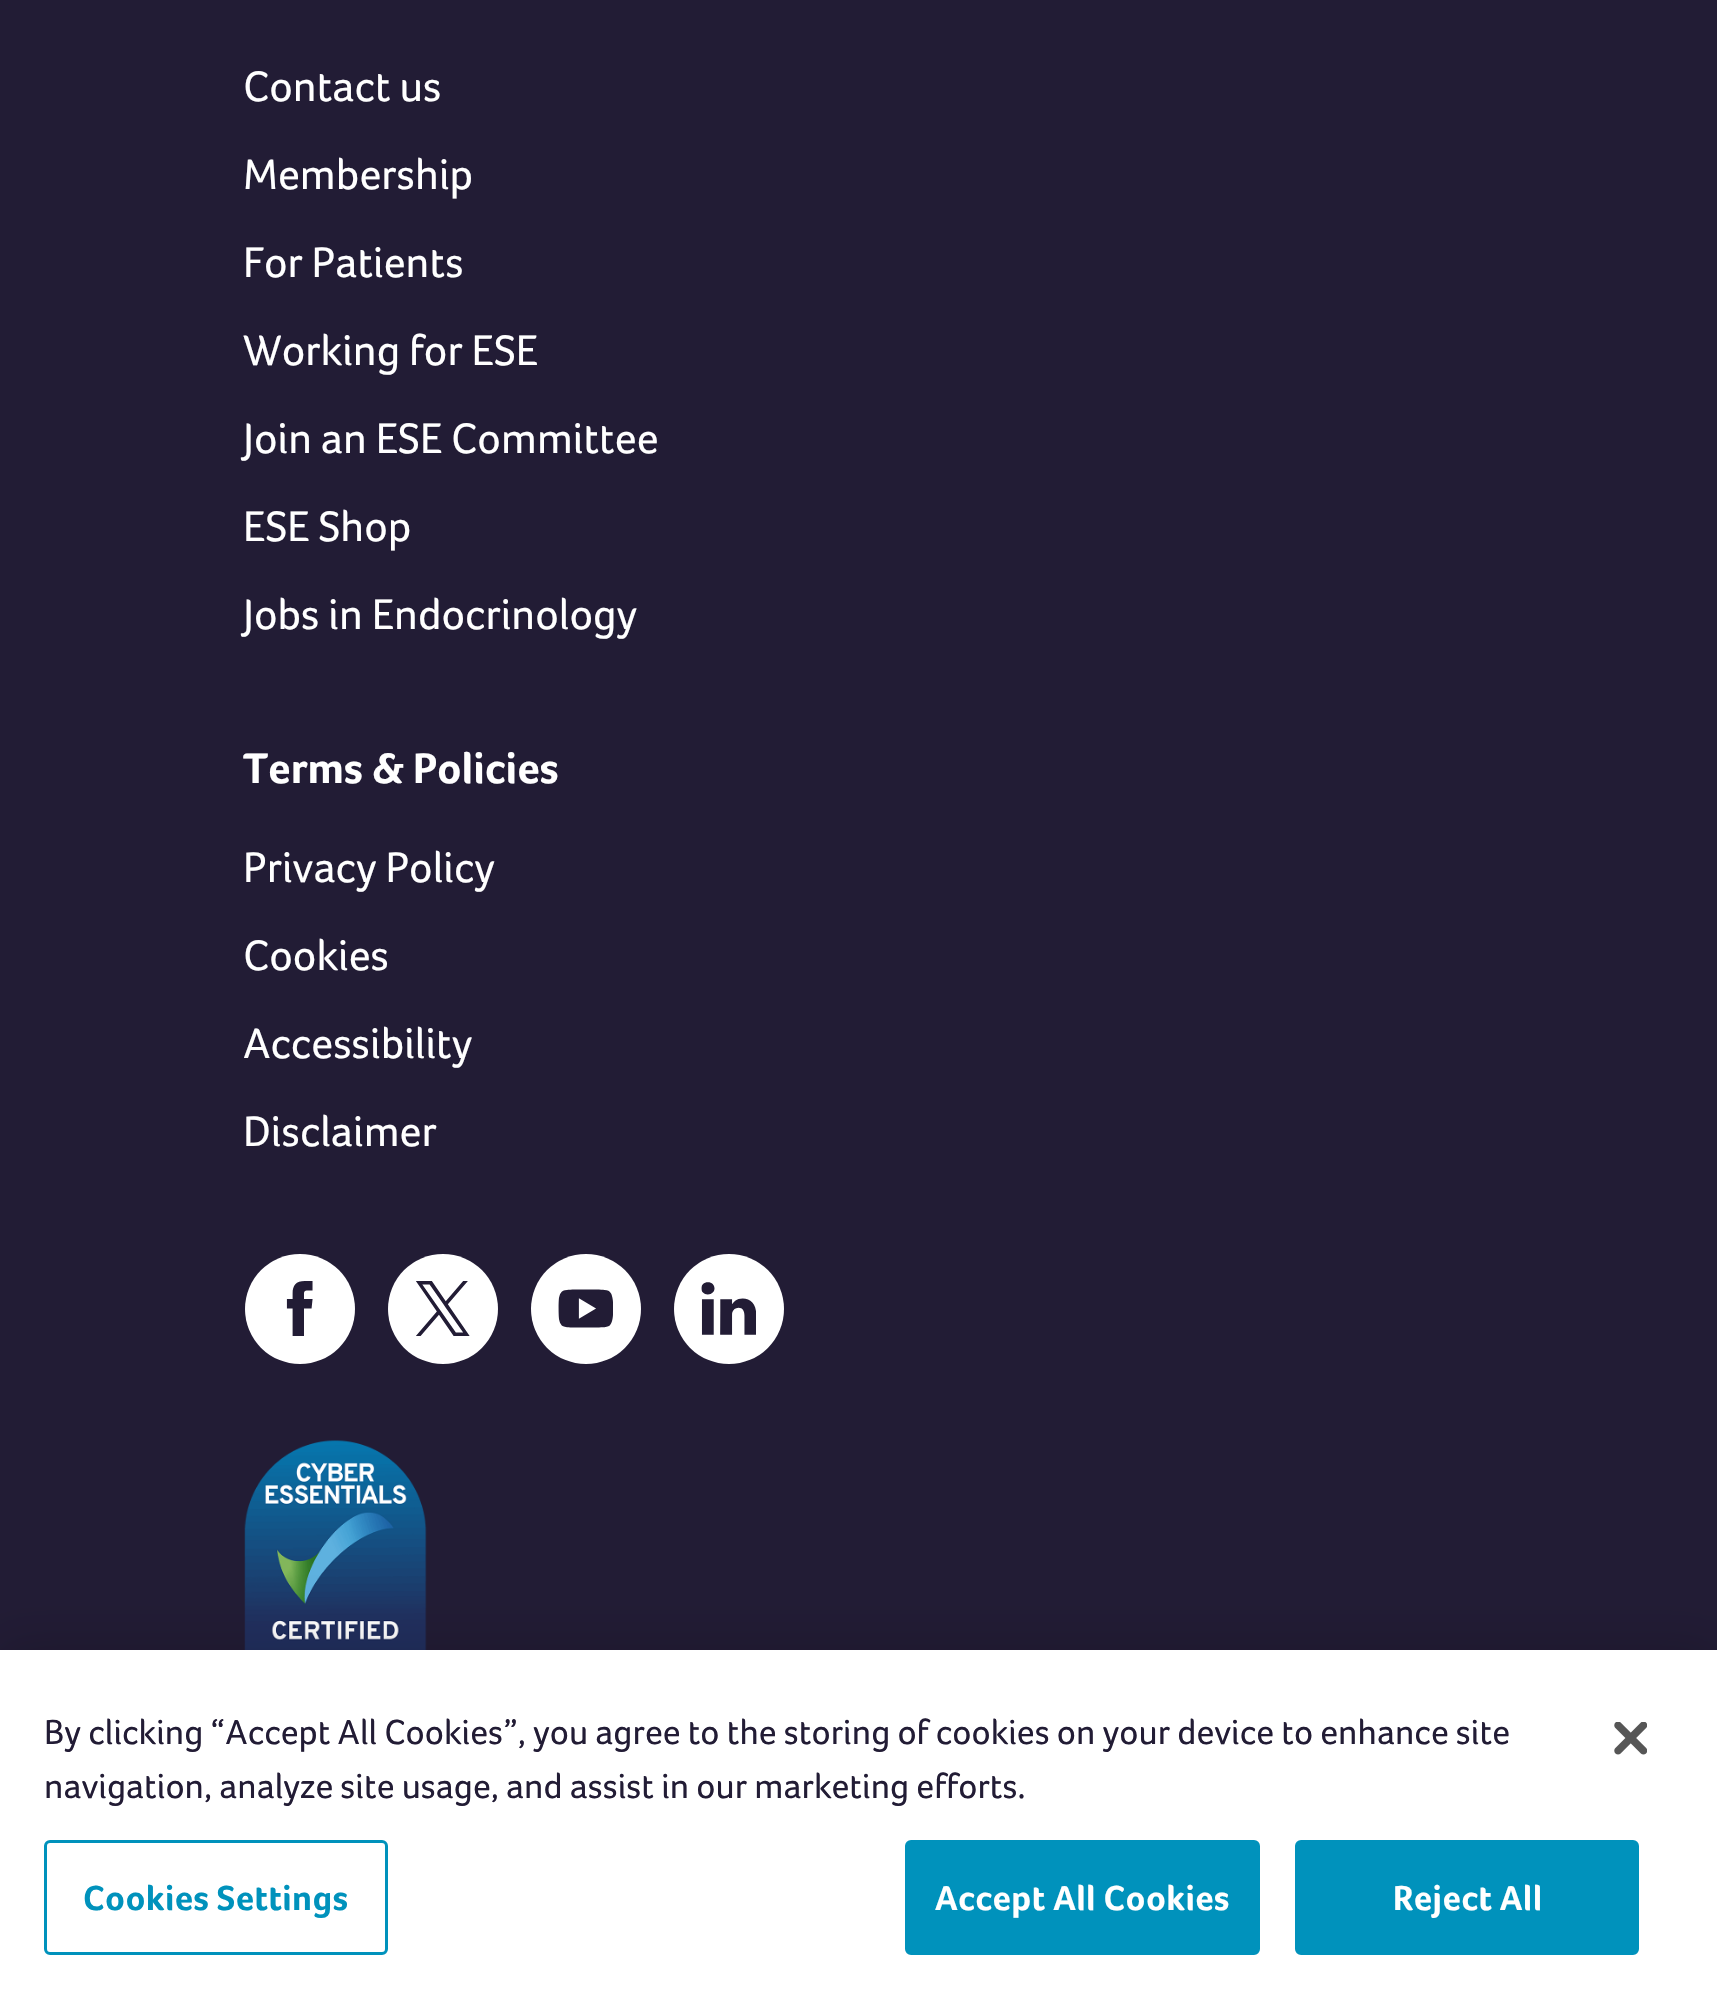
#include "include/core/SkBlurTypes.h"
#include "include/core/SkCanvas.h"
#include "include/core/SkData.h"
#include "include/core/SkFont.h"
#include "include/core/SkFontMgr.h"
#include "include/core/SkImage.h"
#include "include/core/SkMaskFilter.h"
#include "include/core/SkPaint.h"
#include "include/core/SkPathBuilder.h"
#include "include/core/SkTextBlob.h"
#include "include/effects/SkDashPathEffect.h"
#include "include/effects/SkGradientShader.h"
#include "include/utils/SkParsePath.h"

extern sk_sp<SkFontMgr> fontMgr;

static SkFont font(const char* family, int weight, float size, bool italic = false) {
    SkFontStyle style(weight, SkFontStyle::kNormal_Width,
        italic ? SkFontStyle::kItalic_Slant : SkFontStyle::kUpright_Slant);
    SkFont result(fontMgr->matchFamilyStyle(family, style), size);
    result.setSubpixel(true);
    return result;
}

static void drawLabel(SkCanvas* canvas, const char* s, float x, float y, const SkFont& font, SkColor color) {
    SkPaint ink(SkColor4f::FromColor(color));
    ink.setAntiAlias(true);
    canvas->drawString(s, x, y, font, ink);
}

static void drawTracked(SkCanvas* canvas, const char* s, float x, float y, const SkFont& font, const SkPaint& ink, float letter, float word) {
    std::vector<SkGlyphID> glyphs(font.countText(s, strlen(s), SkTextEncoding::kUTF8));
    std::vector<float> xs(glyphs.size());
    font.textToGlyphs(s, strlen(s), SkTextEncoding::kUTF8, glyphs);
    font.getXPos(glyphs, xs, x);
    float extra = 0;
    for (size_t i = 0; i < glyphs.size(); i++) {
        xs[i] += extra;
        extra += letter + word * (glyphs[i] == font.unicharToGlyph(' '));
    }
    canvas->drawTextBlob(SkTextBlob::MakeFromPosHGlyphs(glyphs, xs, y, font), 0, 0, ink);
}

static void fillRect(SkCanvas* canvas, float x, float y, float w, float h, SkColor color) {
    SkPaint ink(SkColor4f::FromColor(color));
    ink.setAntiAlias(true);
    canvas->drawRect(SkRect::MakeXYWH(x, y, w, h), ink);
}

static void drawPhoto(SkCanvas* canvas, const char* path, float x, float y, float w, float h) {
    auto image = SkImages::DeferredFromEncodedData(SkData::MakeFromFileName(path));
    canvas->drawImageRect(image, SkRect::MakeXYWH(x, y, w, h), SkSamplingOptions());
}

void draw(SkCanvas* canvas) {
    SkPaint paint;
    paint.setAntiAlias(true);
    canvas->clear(0xFF221C35);
    SkFont font1 = font("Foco", 400, 44);
    drawLabel(canvas, "Contact us", 243, 101, font1, 0xFFFFFFFF);
    drawLabel(canvas, "Membership", 243, 189, font1, 0xFFFFFFFF);
    drawLabel(canvas, "For Patients", 243, 277, font1, 0xFFFFFFFF);
    drawLabel(canvas, "Working for ESE", 243, 365, font1, 0xFFFFFFFF);
    drawLabel(canvas, "Join an ESE Committee", 243, 453, font1, 0xFFFFFFFF);
    drawLabel(canvas, "ESE Shop", 243, 541, font1, 0xFFFFFFFF);
    drawLabel(canvas, "Jobs in Endocrinology", 243, 629, font1, 0xFFFFFFFF);
    SkFont font2 = font("Foco", 700, 44);
    drawLabel(canvas, "Terms & Policies", 243, 783, font2, 0xFFFFFFFF);
    drawLabel(canvas, "Privacy Policy", 243, 882, font1, 0xFFFFFFFF);
    drawLabel(canvas, "Cookies", 243, 970, font1, 0xFFFFFFFF);
    drawLabel(canvas, "Accessibility", 243, 1058, font1, 0xFFFFFFFF);
    drawLabel(canvas, "Disclaimer", 243, 1146, font1, 0xFFFFFFFF);
    paint.setColor(0xFFFFFFFF);
    canvas->drawCircle(300, 1309, 55, paint);
    drawPhoto(canvas, "assets/img1.png", 286, 1281, 27, 55);
    canvas->drawCircle(443, 1309, 55, paint);
    drawPhoto(canvas, "assets/img2.png", 416, 1281, 54, 55);
    canvas->drawCircle(586, 1309, 55, paint);
    drawPhoto(canvas, "assets/img3.png", 558, 1289, 55, 39);
    canvas->drawCircle(729, 1309, 55, paint);
    drawPhoto(canvas, "assets/img4.png", 701, 1282, 55, 53);
    drawPhoto(canvas, "assets/img5.png", 244, 1440, 183, 210);
    paint.setColor(0x33000000);
    paint.setMaskFilter(SkMaskFilter::MakeBlur(kNormal_SkBlurStyle, 25));
    canvas->drawRect(SkRect::MakeXYWH(0, 1650, 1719, 363), paint);
    paint.setMaskFilter(nullptr);
    fillRect(canvas, 0, 1650, 1717, 363, 0xFFFFFFFF);
    SkFont font3 = font("Foco", 400, 35.75f);
    drawLabel(canvas, "By clicking “Accept All Cookies”, you agree to the storing of cookies on your device to enhance site", 44, 1744, font3, 0xFF221C35);
    drawLabel(canvas, "navigation, analyze site usage, and assist in our marketing efforts.", 44, 1798, font3, 0xFF221C35);
    paint.setStroke(true);
    paint.setStrokeWidth(3);
    paint.setColor(0xFF0092BC);
    canvas->drawRoundRect(SkRect::MakeXYWH(45.5f, 1841.5f, 341, 112), 4.5f, 4.5f, paint);
    SkFont font4 = font("Foco", 700, 35.75f);
    paint.setStroke(false);
    drawTracked(canvas, "Cookies Settings", 83, 1910, font4, paint, 0.4f, 0);
    canvas->drawRoundRect(SkRect::MakeXYWH(906.5f, 1841.5f, 352, 112), 4.5f, 4.5f, paint);
    paint.setStroke(true);
    canvas->drawRoundRect(SkRect::MakeXYWH(906.5f, 1841.5f, 352, 112), 4.5f, 4.5f, paint);
    paint.setStroke(false);
    paint.setColor(0xFFFFFFFF);
    drawTracked(canvas, "Accept All Cookies", 935, 1910, font4, paint, 0.4f, 0);
    paint.setColor(0xFF0092BC);
    canvas->drawRoundRect(SkRect::MakeXYWH(1296.5f, 1841.5f, 341, 112), 4.5f, 4.5f, paint);
    paint.setStroke(true);
    canvas->drawRoundRect(SkRect::MakeXYWH(1296.5f, 1841.5f, 341, 112), 4.5f, 4.5f, paint);
    paint.setStroke(false);
    paint.setColor(0xFFFFFFFF);
    drawTracked(canvas, "Reject All", 1393, 1910, font4, paint, 0.4f, 0);
    drawPhoto(canvas, "assets/img6.png", 1614, 1722, 33, 33);
}
